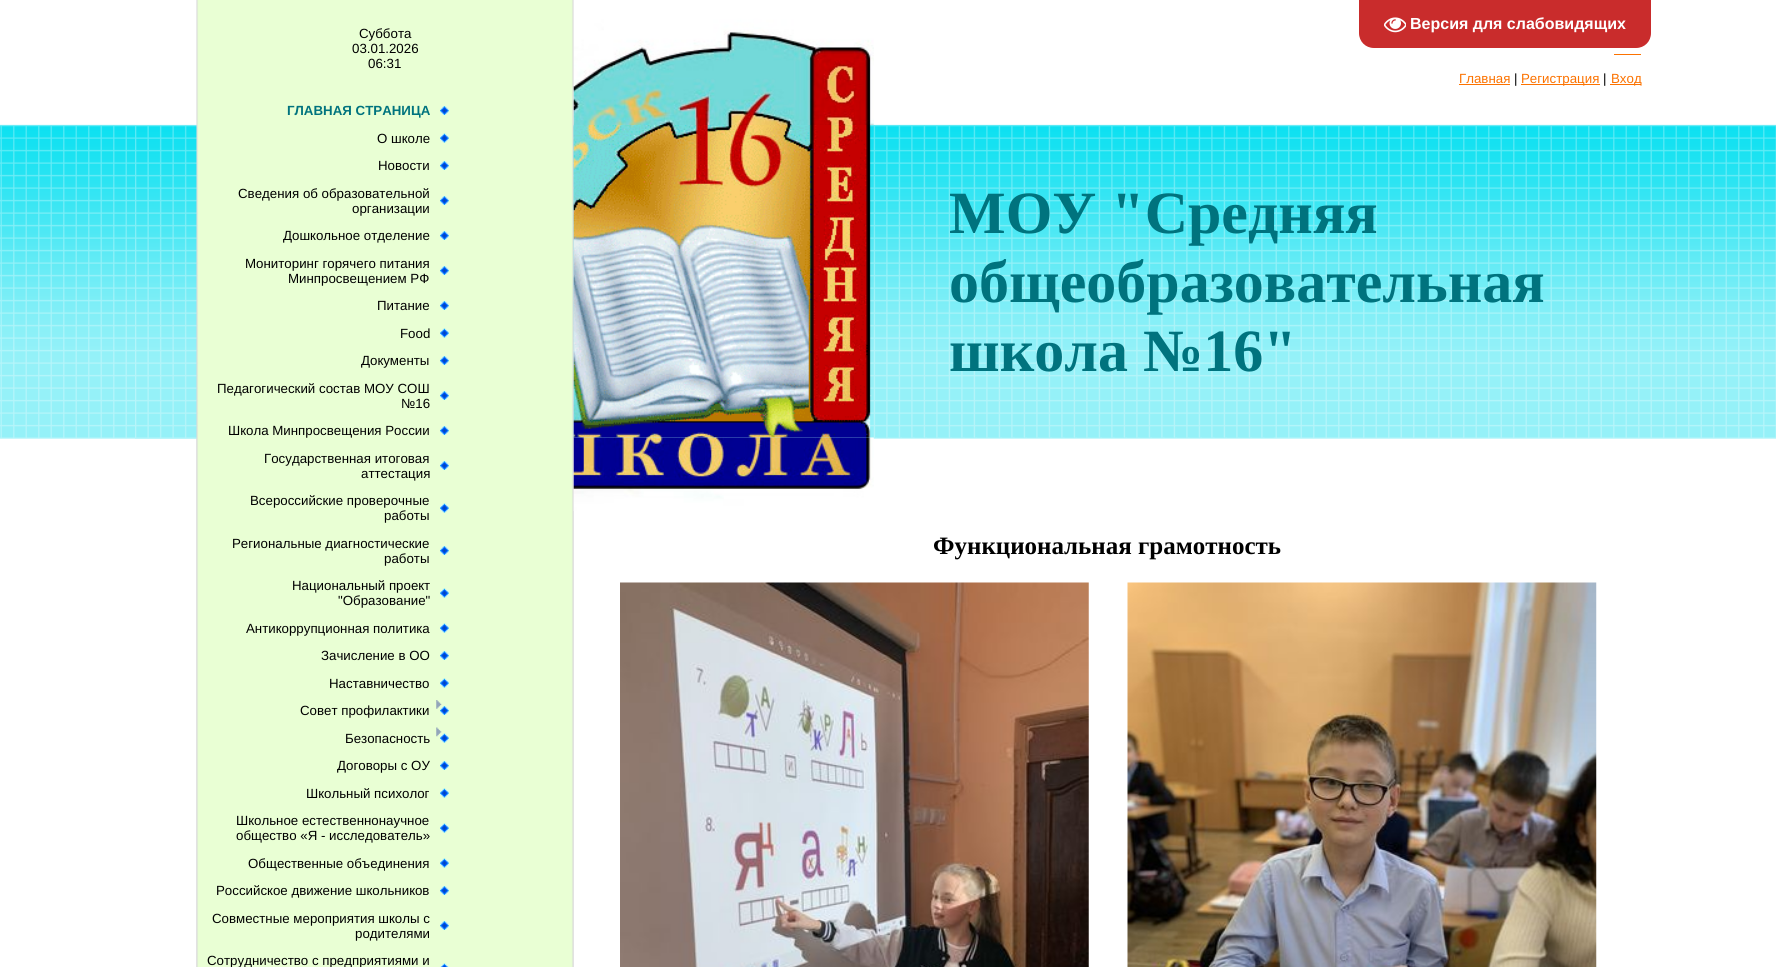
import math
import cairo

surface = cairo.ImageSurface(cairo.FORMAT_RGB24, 1776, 967)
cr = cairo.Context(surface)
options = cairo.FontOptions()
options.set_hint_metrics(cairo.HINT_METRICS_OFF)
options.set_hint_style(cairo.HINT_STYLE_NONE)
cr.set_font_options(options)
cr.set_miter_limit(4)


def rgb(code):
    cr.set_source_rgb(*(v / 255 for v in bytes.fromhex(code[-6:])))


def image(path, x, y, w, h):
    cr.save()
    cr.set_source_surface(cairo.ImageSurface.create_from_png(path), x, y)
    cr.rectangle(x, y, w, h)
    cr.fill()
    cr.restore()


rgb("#ffffff")
cr.paint()
rgb("#c92c2c")
cr.new_path()
cr.move_to(1359, 0)
cr.line_to(1651, 0)
cr.line_to(1651, 33)
cr.curve_to(1651, 41.5, 1644.5, 48, 1636, 48)
cr.line_to(1374, 48)
cr.curve_to(1365.5, 48, 1359, 41.5, 1359, 33)
cr.close_path()
cr.fill()
image("img/1.png", 1384, 17, 22, 16)
image("img/2.png", 0, 124, 1776, 315)
image("img/4.png", 196, 0, 378, 967)
image("img/3.png", 135, 0, 62, 439)
image("img/5.png", 440, 106, 9, 9)
image("img/6.png", 440, 133, 9, 10)
image("img/5.png", 440, 161, 9, 9)
image("img/5.png", 440, 196, 9, 9)
image("img/5.png", 440, 231, 9, 9)
image("img/5.png", 440, 266, 9, 9)
image("img/5.png", 440, 301, 9, 9)
image("img/6.png", 440, 328, 9, 10)
image("img/5.png", 440, 356, 9, 9)
image("img/5.png", 440, 391, 9, 9)
image("img/5.png", 440, 426, 9, 9)
image("img/5.png", 440, 461, 9, 9)
image("img/6.png", 440, 503, 9, 10)
image("img/5.png", 440, 546, 9, 9)
image("img/6.png", 440, 588, 9, 10)
image("img/6.png", 440, 623, 9, 10)
image("img/5.png", 440, 651, 9, 9)
image("img/6.png", 440, 678, 9, 10)
image("img/5.png", 440, 706, 9, 9)
image("img/7.png", 436, 700, 6, 9)
image("img/6.png", 440, 733, 9, 10)
image("img/8.png", 436, 727, 6, 10)
image("img/5.png", 440, 761, 9, 9)
image("img/6.png", 440, 788, 9, 10)
image("img/6.png", 440, 823, 9, 10)
image("img/6.png", 440, 858, 9, 10)
image("img/5.png", 440, 886, 9, 9)
image("img/5.png", 440, 921, 9, 9)
image("img/9.png", 440, 963, 9, 4)
image("img/10.png", 573, 0, 301, 125)
for x, y, w, h, color in [
    (1614, 54, 27, 1, "#fc7200"),
    (1459, 84, 51, 1, "#fc7200"),
    (1521, 84, 79, 1, "#fc7200"),
    (1610, 84, 31, 1, "#fc7200"),
]:
    rgb(color)
    cr.rectangle(x, y, w, h)
    cr.fill()
image("img/11.png", 573, 125, 701, 313)
image("img/12.png", 573, 437, 301, 74)
image("img/13.png", 620, 582, 469, 385)
image("img/14.png", 1127, 582, 470, 385)
cr.select_font_face("Liberation Sans", cairo.FONT_SLANT_NORMAL, cairo.FONT_WEIGHT_BOLD)
cr.set_font_size(16)
rgb("#ffffff")
cr.move_to(1410, 29)
cr.show_text("Версия для слабовидящих")
cr.select_font_face("Liberation Sans")
cr.set_font_size(13.3)
rgb("#000000")
for x, y, s in [
    (359, 38, "Суббота"),
    (352, 53, "03.01.2026"),
    (368, 68, "06:31"),
]:
    cr.move_to(x, y)
    cr.show_text(s)
cr.select_font_face("Liberation Sans", cairo.FONT_SLANT_NORMAL, cairo.FONT_WEIGHT_BOLD)
rgb("#00737e")
cr.move_to(287, 115)
cr.show_text("ГЛАВНАЯ СТРАНИЦА")
cr.select_font_face("Liberation Sans")
rgb("#000000")
for x, y, s in [
    (377, 143, "О школе"),
    (378, 170, "Новости"),
    (238, 198, "Сведения об образовательной"),
    (352, 213, "организации"),
    (283, 240, "Дошкольное отделение"),
    (245, 268, "Мониторинг горячего питания"),
    (288, 283, "Минпросвещением РФ"),
    (377, 310, "Питание"),
    (400, 338, "Food"),
    (361, 365, "Документы"),
    (217, 393, "Педагогический состав МОУ СОШ"),
    (401, 408, "№16"),
    (228, 435, "Школа Минпросвещения России"),
    (264, 463, "Государственная итоговая"),
    (361, 478, "аттестация"),
    (250, 505, "Всероссийские проверочные"),
    (384, 520, "работы"),
    (232, 548, "Региональные диагностические"),
    (384, 563, "работы"),
    (292, 590, "Национальный проект"),
    (338, 605, "\"Образование\""),
    (246, 633, "Антикоррупционная политика"),
    (321, 660, "Зачисление в ОО"),
    (329, 688, "Наставничество"),
    (300, 715, "Совет профилактики"),
    (345, 743, "Безопасность"),
    (337, 770, "Договоры с ОУ"),
    (306, 798, "Школьный психолог"),
    (236, 825, "Школьное естественнонаучное"),
    (236, 840, "общество «Я - исследователь»"),
    (248, 868, "Общественные объединения"),
    (216, 895, "Российское движение школьников"),
    (212, 923, "Совместные мероприятия школы с"),
    (355, 938, "родителями"),
    (207, 965, "Сотрудничество с предприятиями и"),
]:
    cr.move_to(x, y)
    cr.show_text(s)
rgb("#fc7200")
cr.move_to(1459, 83)
cr.show_text("Главная")
rgb("#000000")
cr.move_to(1514, 83)
cr.show_text("|")
rgb("#fc7200")
cr.move_to(1521, 83)
cr.show_text("Регистрация")
rgb("#000000")
cr.move_to(1603, 83)
cr.show_text("|")
rgb("#fc7200")
cr.move_to(1611, 83)
cr.show_text("Вход")
cr.select_font_face("Liberation Serif", cairo.FONT_SLANT_NORMAL, cairo.FONT_WEIGHT_BOLD)
cr.set_font_size(60)
rgb("#00737e")
for x, y, s in [
    (949, 233, "МОУ \"Средняя"),
    (949, 302, "общеобразовательная"),
    (949, 371, "школа №16\""),
]:
    cr.move_to(x, y)
    cr.show_text(s)
cr.set_font_size(25)
rgb("#000000")
cr.move_to(933, 554)
cr.show_text("Функциональная грамотность")
surface.write_to_png("page.png")
